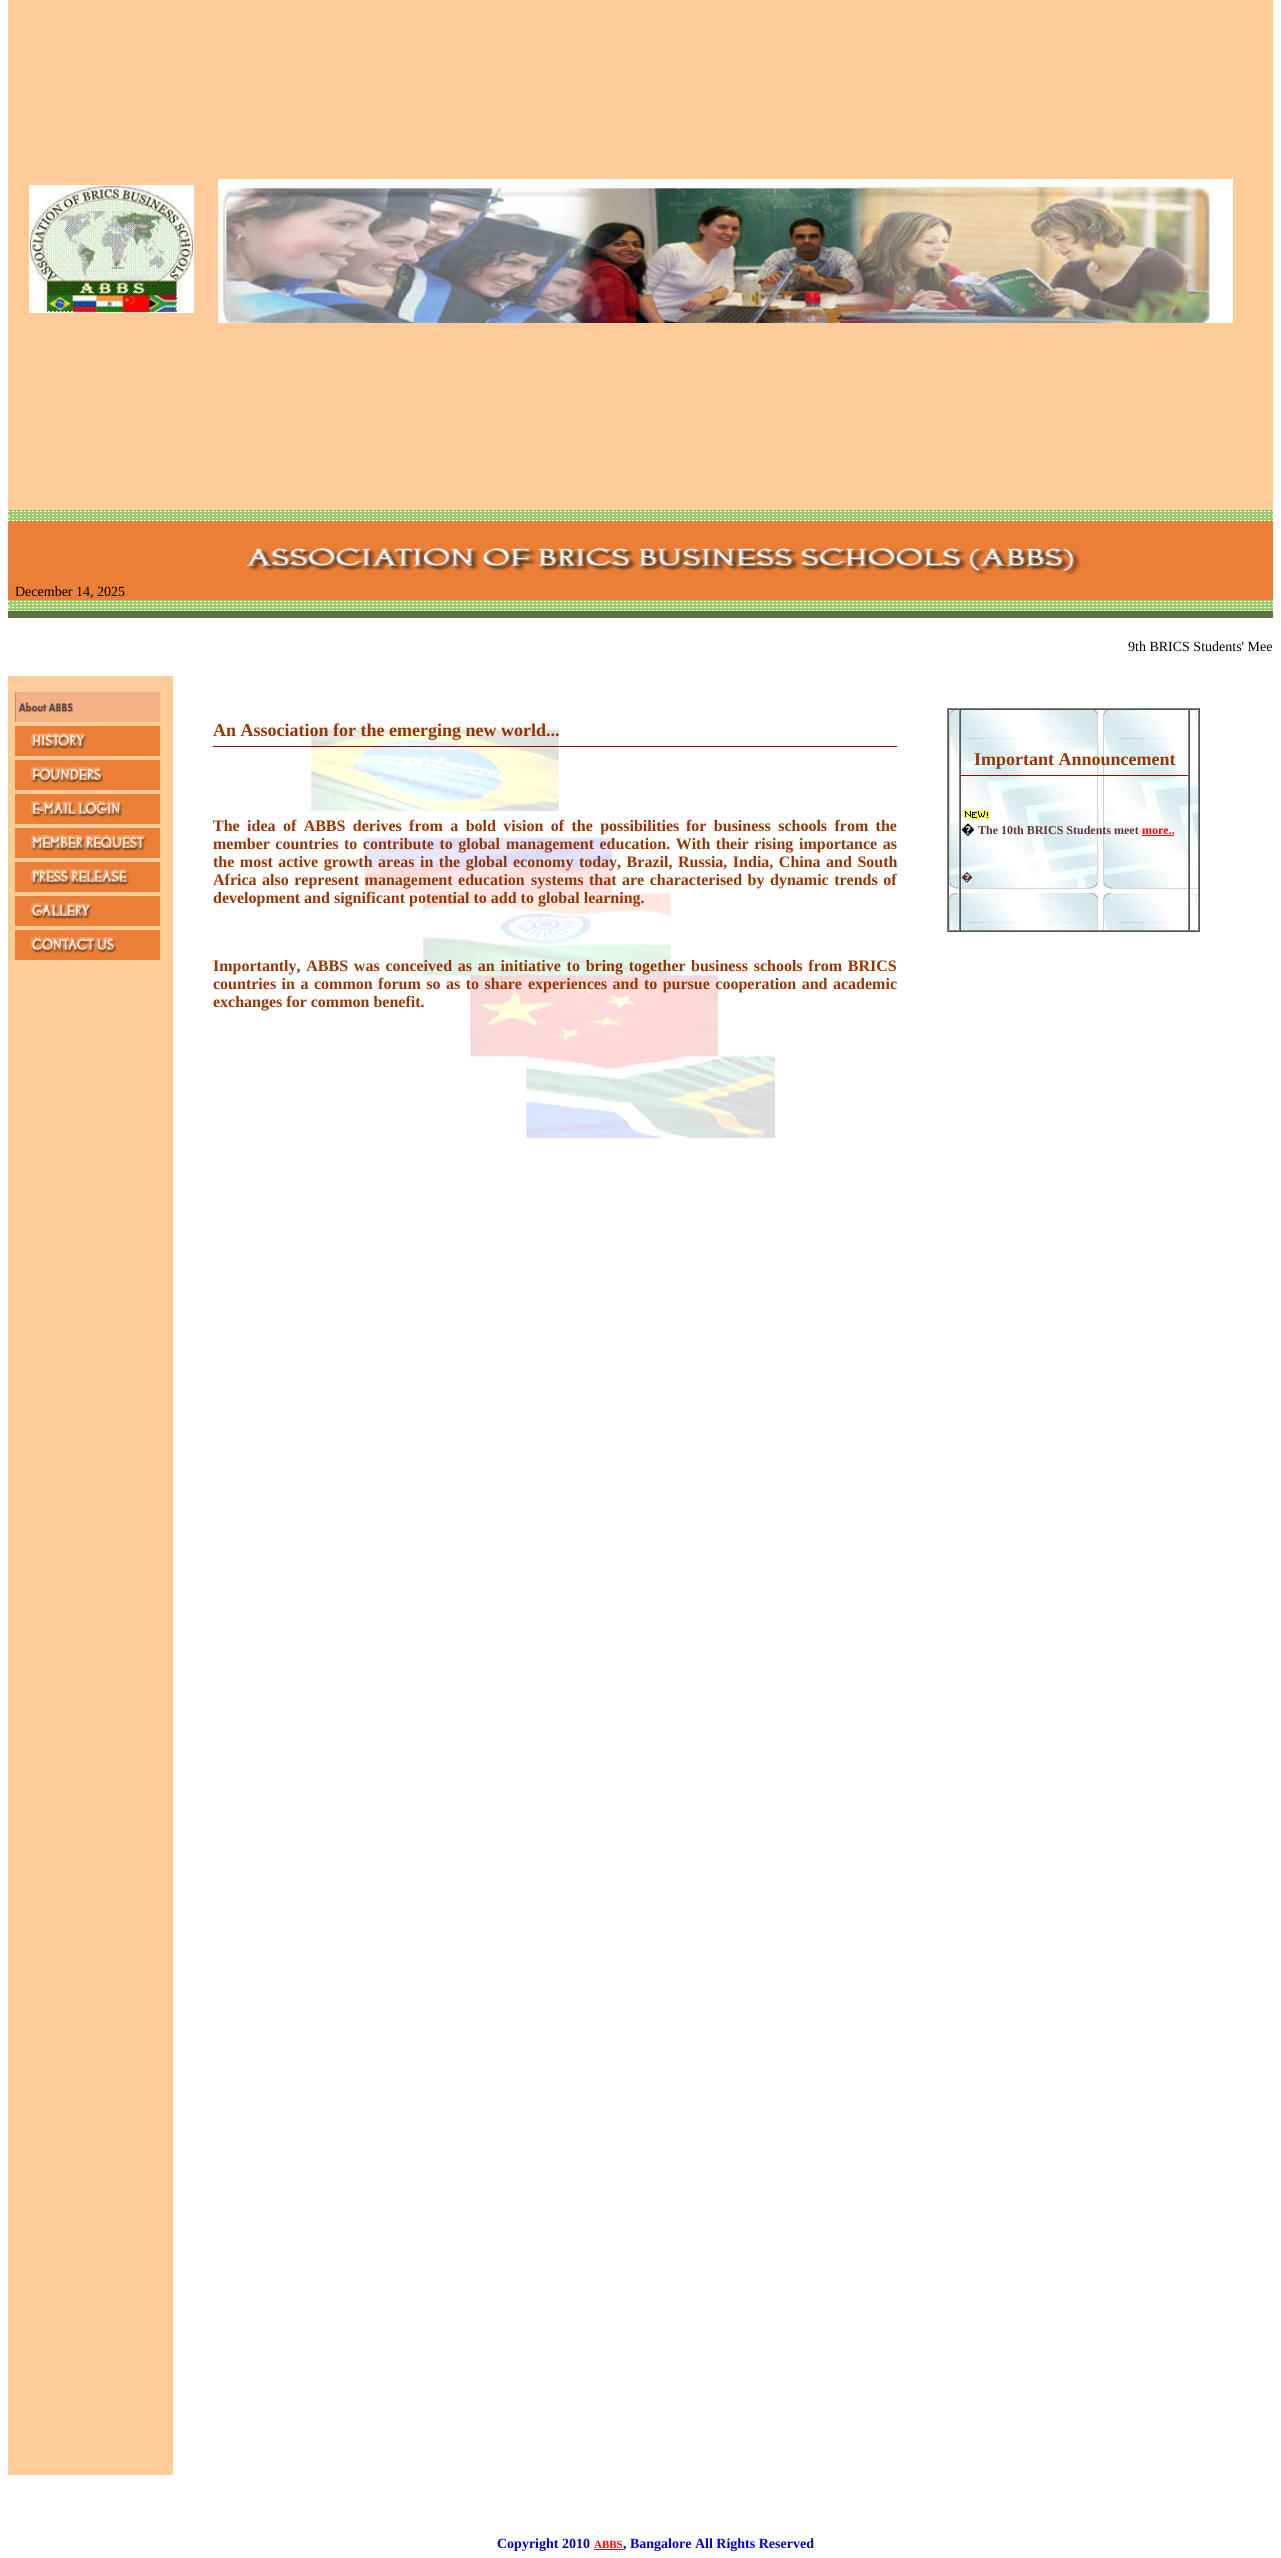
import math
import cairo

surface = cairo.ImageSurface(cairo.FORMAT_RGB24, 1281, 2558)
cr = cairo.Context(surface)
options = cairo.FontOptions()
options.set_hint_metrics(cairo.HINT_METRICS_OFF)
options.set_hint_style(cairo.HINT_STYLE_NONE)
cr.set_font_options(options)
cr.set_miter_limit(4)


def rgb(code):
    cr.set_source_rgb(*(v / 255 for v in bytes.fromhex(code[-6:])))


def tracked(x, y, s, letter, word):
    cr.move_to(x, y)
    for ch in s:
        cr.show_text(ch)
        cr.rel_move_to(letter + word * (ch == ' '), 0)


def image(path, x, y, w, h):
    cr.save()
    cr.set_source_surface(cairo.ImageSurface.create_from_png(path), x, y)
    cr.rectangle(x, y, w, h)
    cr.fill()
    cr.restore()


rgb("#ffffff")
cr.paint()
rgb("#ffcc99")
cr.rectangle(8, 0, 1265, 510)
cr.fill()
image("img/1.png", 29, 185, 165, 128)
image("img/2.png", 218, 179, 1015, 144)
rgb("#99cc66")
cr.rectangle(8, 510, 1265, 1)
cr.fill()
image("img/3.png", 8, 511, 1265, 10)
image("img/4.png", 8, 514, 2, 2)
rgb("#eb7f37")
cr.rectangle(8, 521, 1265, 79)
cr.fill()
image("img/5.png", 246, 548, 835, 27)
rgb("#99cc66")
cr.rectangle(8, 600, 1265, 1)
cr.fill()
image("img/3.png", 8, 601, 1265, 10)
image("img/4.png", 8, 604, 2, 2)
rgb("#5c743d")
cr.rectangle(8, 611, 1265, 7)
cr.fill()
rgb("#ffcc99")
cr.rectangle(8, 676, 165, 1799)
cr.fill()
image("img/6.png", 15, 692, 145, 30)
image("img/7.png", 15, 726, 145, 30)
image("img/8.png", 15, 760, 145, 30)
image("img/9.png", 15, 794, 145, 30)
image("img/10.png", 15, 828, 145, 30)
image("img/11.png", 15, 862, 145, 30)
image("img/12.png", 15, 896, 145, 30)
image("img/13.png", 15, 930, 145, 30)
image("img/14.png", 311, 728, 465, 411)
rgb("#9d0302")
cr.rectangle(213, 746, 684, 1)
cr.fill()
image("img/15.png", 949, 710, 249, 220)
for x, y, w, h, color in [
    (947, 708, 253, 1, "#808080"),
    (1199, 708, 1, 224, "#555555"),
    (947, 931, 253, 1, "#555555"),
    (947, 708, 1, 224, "#808080"),
    (948, 709, 251, 1, "#555555"),
    (959, 709, 1, 222, "#808080"),
    (948, 930, 12, 1, "#808080"),
    (948, 709, 1, 222, "#555555"),
    (1188, 709, 1, 222, "#808080"),
    (960, 930, 229, 1, "#808080"),
    (960, 709, 1, 222, "#555555"),
    (961, 775, 227, 1, "#9d0302"),
]:
    rgb(color)
    cr.rectangle(x, y, w, h)
    cr.fill()
image("img/16.png", 964, 810, 25, 9)
for x, y, w, h, color in [
    (1142, 835, 32, 1, "#ff0000"),
    (1198, 709, 1, 222, "#808080"),
    (1189, 930, 10, 1, "#808080"),
    (1189, 709, 1, 222, "#555555"),
    (594, 2549, 29, 1, "#ff0000"),
]:
    rgb(color)
    cr.rectangle(x, y, w, h)
    cr.fill()
cr.select_font_face("Liberation Serif")
cr.set_font_size(14)
rgb("#000000")
cr.move_to(15, 596)
cr.show_text("December 14, 2025")
cr.move_to(1128, 651)
cr.show_text("9th BRICS Students' Mee")
cr.select_font_face("Liberation Serif", cairo.FONT_SLANT_NORMAL, cairo.FONT_WEIGHT_BOLD)
cr.set_font_size(18)
rgb("#993300")
cr.move_to(213, 736)
cr.show_text("An Association for the emerging new world...")
cr.set_font_size(16)
tracked(213, 831, "The idea of ABBS derives from a bold vision of the possibilities", 0, 3.4)
tracked(686, 831, "for business schools from the", 0, 3.4)
for x, y, s in [
    (213, 849, "member countries to contribute to global"),
    (506, 849, "management education. With their rising"),
    (799, 849, "importance as"),
    (213, 867, "the most active growth areas in the global economy today, Brazil,"),
    (678, 867, "Russia, India, China and South"),
    (213, 885, "Africa also represent management education"),
    (531, 885, "systems that are characterised by dynamic trends of"),
]:
    tracked(x, y, s, 0, 1.5)
cr.move_to(213, 903)
cr.show_text("development and significant potential to add to global learning.")
tracked(213, 971, "Importantly, ABBS was conceived as an initiative to bring together", 0, 1.75)
tracked(691, 971, "business schools from BRICS", 0, 1.75)
tracked(213, 989, "countries in a common forum so as to share", 0, 1.5)
tracked(528, 989, "experiences and to pursue cooperation and academic", 0, 1.5)
cr.move_to(213, 1007)
cr.show_text("exchanges for common benefit.")
cr.set_font_size(18)
cr.move_to(974, 765)
cr.show_text("Important Announcement")
cr.select_font_face("Noto Sans")
cr.set_font_size(14)
rgb("#000000")
cr.move_to(961, 834)
cr.show_text("�")
cr.select_font_face("Liberation Serif", cairo.FONT_SLANT_NORMAL, cairo.FONT_WEIGHT_BOLD)
cr.set_font_size(12)
rgb("#663333")
cr.move_to(978, 834)
cr.show_text("The 10th BRICS Students meet")
rgb("#ff0000")
cr.move_to(1142, 834)
cr.show_text("more..")
cr.select_font_face("Noto Sans", cairo.FONT_SLANT_NORMAL, cairo.FONT_WEIGHT_BOLD)
rgb("#663333")
cr.move_to(961, 881)
cr.show_text("�")
cr.select_font_face("Liberation Serif", cairo.FONT_SLANT_NORMAL, cairo.FONT_WEIGHT_BOLD)
cr.set_font_size(14)
rgb("#0000cc")
cr.move_to(497, 2548)
cr.show_text("Copyright 2010")
cr.set_font_size(11)
rgb("#ff0000")
cr.move_to(594, 2548)
cr.show_text("ABBS")
cr.set_font_size(14)
rgb("#0000cc")
cr.move_to(623, 2548)
cr.show_text(", Bangalore All Rights Reserved")
surface.write_to_png("page.png")
